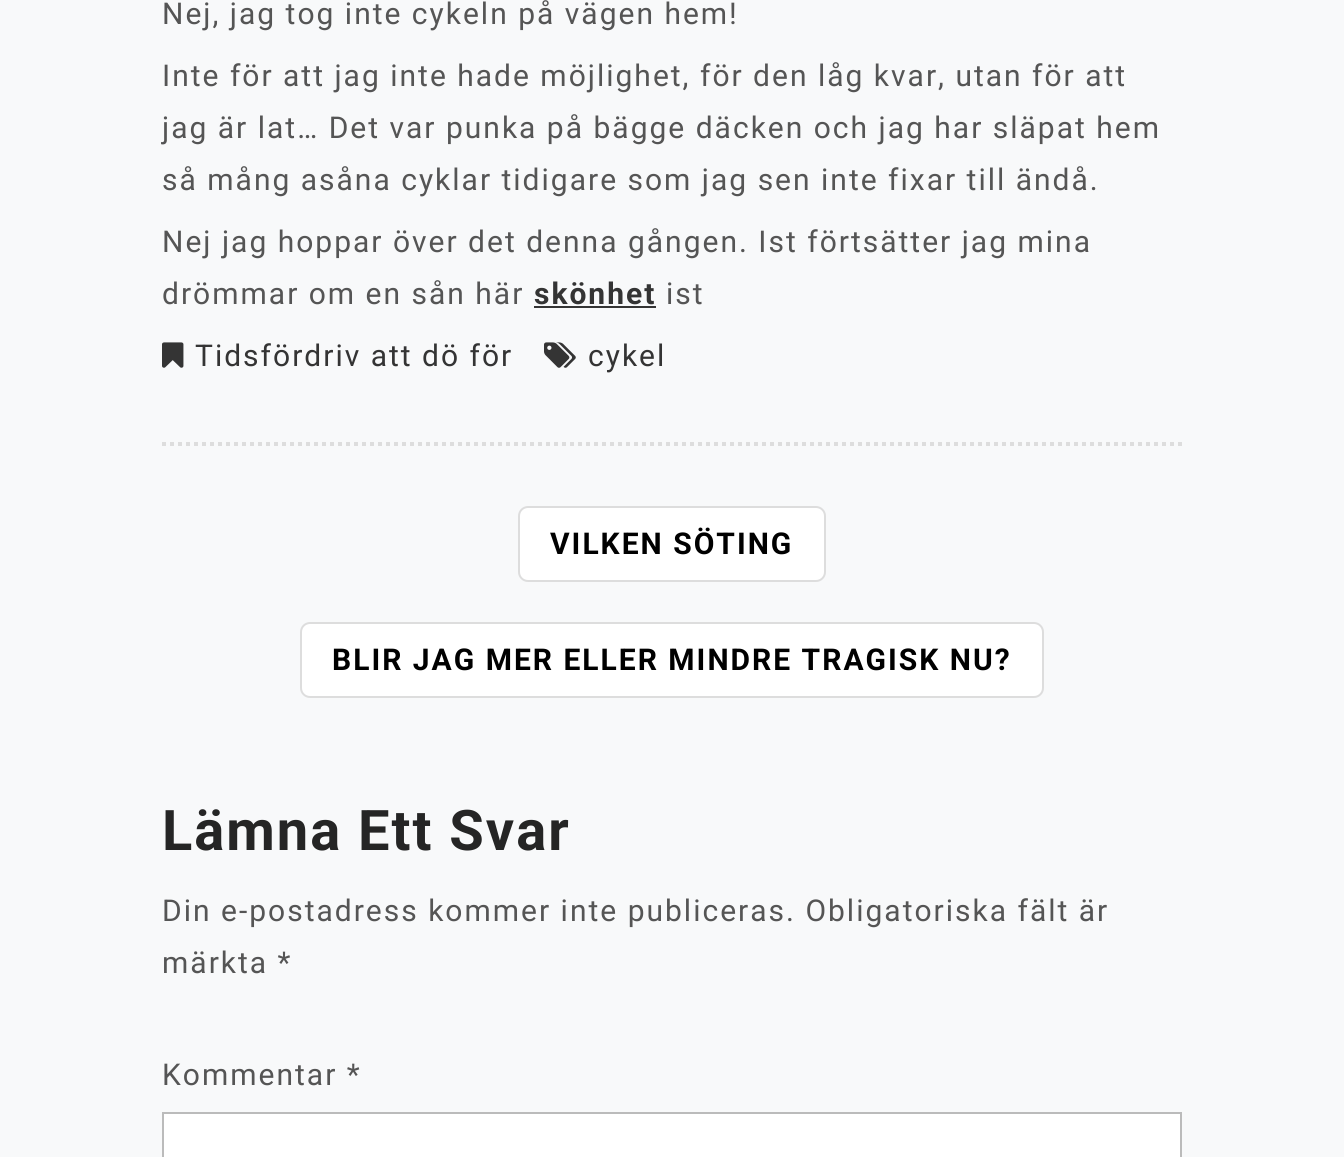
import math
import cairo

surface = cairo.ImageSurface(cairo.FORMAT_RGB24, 1344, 1157)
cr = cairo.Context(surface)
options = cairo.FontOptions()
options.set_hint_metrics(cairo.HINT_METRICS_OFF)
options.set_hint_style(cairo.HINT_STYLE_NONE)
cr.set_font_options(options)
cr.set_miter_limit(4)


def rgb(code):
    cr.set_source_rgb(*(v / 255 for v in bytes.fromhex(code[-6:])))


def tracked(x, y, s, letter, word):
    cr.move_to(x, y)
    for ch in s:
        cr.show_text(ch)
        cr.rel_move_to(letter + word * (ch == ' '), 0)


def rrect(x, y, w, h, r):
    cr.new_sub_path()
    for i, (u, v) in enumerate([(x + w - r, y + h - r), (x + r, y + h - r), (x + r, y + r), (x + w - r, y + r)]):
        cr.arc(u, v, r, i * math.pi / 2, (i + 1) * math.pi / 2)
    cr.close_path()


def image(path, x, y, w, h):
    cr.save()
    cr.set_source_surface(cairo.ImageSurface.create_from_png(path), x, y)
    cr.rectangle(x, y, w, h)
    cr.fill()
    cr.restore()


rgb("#f8f9fa")
cr.paint()
cr.new_path()
cr.move_to(162, 444)
cr.line_to(1182, 444)
rgb("#dddddd")
cr.set_line_width(4)
cr.set_dash([4, 4])
cr.stroke()
rgb("#343434")
cr.rectangle(534, 306, 122, 2)
cr.fill()
image("img/1.png", 162, 342, 22, 26)
image("img/2.png", 544, 342, 32, 26)
rgb("#ffffff")
rrect(519, 507, 306, 74, 9)
cr.fill_preserve()
rgb("#dddddd")
cr.set_line_width(2)
cr.set_dash([])
cr.stroke()
rgb("#ffffff")
rrect(301, 623, 742, 74, 9)
cr.fill_preserve()
rgb("#dddddd")
cr.stroke()
rgb("#ffffff")
cr.rectangle(163, 1113, 1018, 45)
cr.fill_preserve()
rgb("#bbbbbb")
cr.stroke()
cr.select_font_face("Roboto")
cr.set_font_size(30)
rgb("#555555")
for x, y, s in [
    (162, 24, "Nej, jag tog inte cykeln på vägen hem!"),
    (162, 86, "Inte för att jag inte hade möjlighet, för den låg kvar, utan för att"),
    (162, 138, "jag är lat… Det var punka på bägge däcken och jag har släpat hem"),
    (162, 190, "så mång asåna cyklar tidigare som jag sen inte fixar till ändå."),
    (162, 252, "Nej jag hoppar över det denna gången. Ist förtsätter jag mina"),
    (162, 304, "drömmar om en sån här"),
]:
    tracked(x, y, s, 2, 0)
cr.select_font_face("Roboto", cairo.FONT_SLANT_NORMAL, cairo.FONT_WEIGHT_BOLD)
rgb("#343434")
tracked(534, 304, "skönhet", 2, 0)
cr.select_font_face("Roboto")
rgb("#555555")
tracked(666, 304, "ist", 2, 0)
rgb("#343434")
tracked(195, 366, "Tidsfördriv att dö för", 2, 0)
tracked(588, 366, "cykel", 2, 0)
cr.select_font_face("Roboto", cairo.FONT_SLANT_NORMAL, cairo.FONT_WEIGHT_BOLD)
rgb("#000000")
tracked(550, 554, "VILKEN SÖTING", 2, 0)
tracked(332, 670, "BLIR JAG MER ELLER MINDRE TRAGISK NU?", 2, 0)
cr.set_font_size(56)
rgb("#252525")
tracked(162, 850, "Lämna Ett Svar", 2, 0)
cr.select_font_face("Roboto")
cr.set_font_size(30)
rgb("#555555")
for x, y, s in [
    (162, 921, "Din e-postadress kommer inte publiceras. Obligatoriska fält är"),
    (162, 973, "märkta *"),
    (162, 1085, "Kommentar *"),
]:
    tracked(x, y, s, 2, 0)
surface.write_to_png("page.png")
